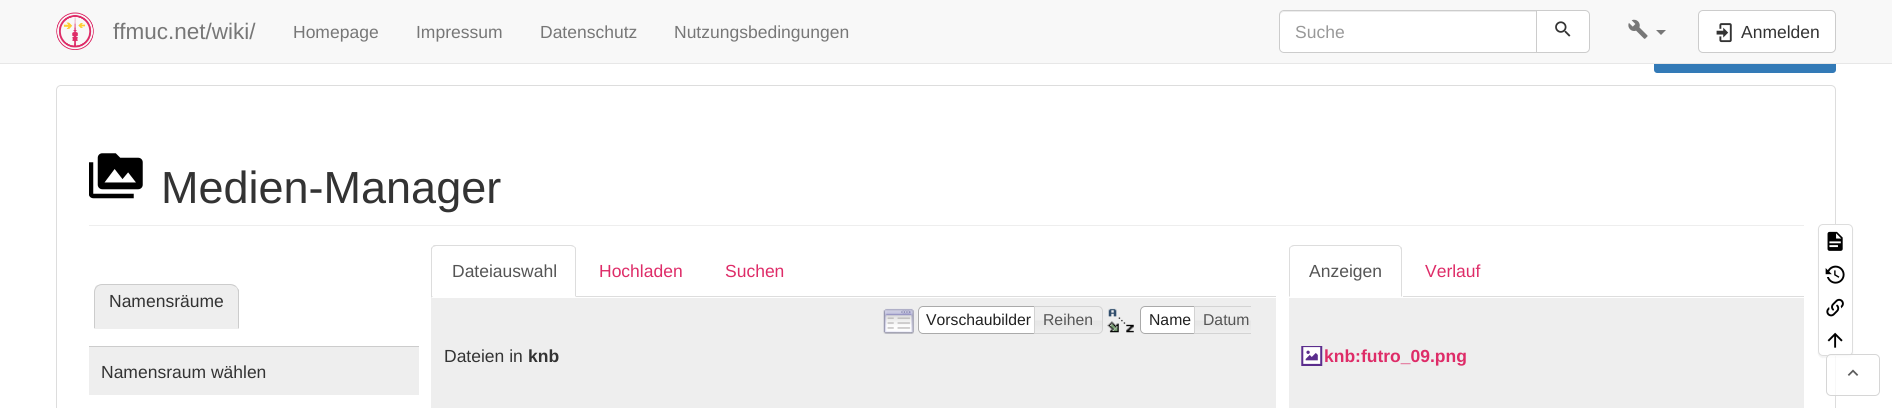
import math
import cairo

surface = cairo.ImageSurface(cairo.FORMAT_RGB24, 1892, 408)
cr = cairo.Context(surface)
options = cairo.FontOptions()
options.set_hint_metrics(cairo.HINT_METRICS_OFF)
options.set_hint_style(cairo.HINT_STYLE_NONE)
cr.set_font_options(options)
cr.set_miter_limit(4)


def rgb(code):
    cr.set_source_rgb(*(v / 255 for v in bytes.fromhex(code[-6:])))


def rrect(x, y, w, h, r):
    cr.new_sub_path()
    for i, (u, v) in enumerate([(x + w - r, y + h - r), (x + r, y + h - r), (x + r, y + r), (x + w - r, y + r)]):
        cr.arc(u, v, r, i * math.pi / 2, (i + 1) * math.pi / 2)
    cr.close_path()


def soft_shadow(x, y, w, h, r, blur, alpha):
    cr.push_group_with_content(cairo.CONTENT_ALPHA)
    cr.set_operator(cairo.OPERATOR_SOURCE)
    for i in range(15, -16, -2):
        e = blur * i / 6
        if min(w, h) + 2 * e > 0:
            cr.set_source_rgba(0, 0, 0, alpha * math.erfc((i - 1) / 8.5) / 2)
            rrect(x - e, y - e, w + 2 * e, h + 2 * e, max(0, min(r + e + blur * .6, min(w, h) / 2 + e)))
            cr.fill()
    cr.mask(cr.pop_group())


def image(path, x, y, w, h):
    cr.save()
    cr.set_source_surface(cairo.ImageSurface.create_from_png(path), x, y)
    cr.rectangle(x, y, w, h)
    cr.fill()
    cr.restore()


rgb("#ffffff")
cr.paint()
rgb("#337ab7")
cr.new_path()
cr.move_to(1657, 51)
cr.line_to(1675, 51)
cr.line_to(1675, 73)
cr.line_to(1657, 73)
cr.curve_to(1655.5, 73, 1654, 71.5, 1654, 70)
cr.line_to(1654, 54)
cr.curve_to(1654, 52.5, 1655.5, 51, 1657, 51)
cr.close_path()
cr.fill()
cr.new_path()
cr.move_to(1816, 51)
cr.line_to(1833, 51)
cr.curve_to(1834.5, 51, 1836, 52.5, 1836, 54)
cr.line_to(1836, 70)
cr.curve_to(1836, 71.5, 1834.5, 73, 1833, 73)
cr.line_to(1816, 73)
cr.close_path()
cr.fill()
rgb("#f8f8f8")
cr.rectangle(0, 0, 1892, 63)
cr.fill()
rgb("#e7e7e7")
cr.rectangle(0, 63, 1892, 1)
cr.fill()
image("img/1.png", 56, 12, 38, 38)
rgb("#ffffff")
cr.new_path()
cr.move_to(1284, 10)
cr.line_to(1538, 10)
cr.line_to(1538, 53)
cr.line_to(1284, 53)
cr.curve_to(1281, 53, 1279, 51, 1279, 48)
cr.line_to(1279, 15)
cr.curve_to(1279, 12, 1281, 10, 1284, 10)
cr.close_path()
cr.fill()
rgb("#ececec")
cr.new_path()
cr.move_to(1284, 12)
cr.line_to(1536, 12)
cr.line_to(1536, 11)
cr.line_to(1284, 11)
cr.curve_to(1282, 11, 1280, 13, 1280, 15)
cr.line_to(1280, 16)
cr.curve_to(1280, 14, 1282, 12, 1284, 12)
cr.close_path()
cr.fill()
cr.new_path()
cr.move_to(1284, 10.5)
cr.line_to(1537.5, 10.5)
cr.line_to(1537.5, 52.5)
cr.line_to(1284, 52.5)
cr.curve_to(1281.5, 52.5, 1279.5, 50.5, 1279.5, 48)
cr.line_to(1279.5, 15)
cr.curve_to(1279.5, 12.5, 1281.5, 10.5, 1284, 10.5)
cr.close_path()
rgb("#cccccc")
cr.set_line_width(1)
cr.stroke()
rgb("#ffffff")
cr.new_path()
cr.move_to(1536.5, 10.5)
cr.line_to(1585, 10.5)
cr.curve_to(1587.5, 10.5, 1589.5, 12.5, 1589.5, 15)
cr.line_to(1589.5, 48)
cr.curve_to(1589.5, 50.5, 1587.5, 52.5, 1585, 52.5)
cr.line_to(1536.5, 52.5)
cr.close_path()
cr.fill_preserve()
rgb("#cccccc")
cr.stroke()
image("img/2.png", 1555, 21, 16, 16)
image("img/3.png", 1628, 19, 20, 20)
rgb("#777777")
cr.new_path()
cr.move_to(1656, 30)
cr.line_to(1666, 30)
cr.line_to(1661, 35)
cr.close_path()
cr.fill()
rgb("#ffffff")
rrect(1698.5, 10.5, 137, 42, 4.5)
cr.fill_preserve()
rgb("#cccccc")
cr.stroke()
image("img/4.png", 1716, 23, 16, 20)
rgb("#337ab7")
cr.rectangle(1675, 64, 141, 9)
cr.fill()
rrect(56.5, 85.5, 1779, 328, 4.5)
rgb("#dddddd")
cr.stroke()
rgb("#eeeeee")
cr.rectangle(89, 225, 1715, 1)
cr.fill()
image("img/5.png", 89, 153, 54, 46)
cr.new_path()
cr.move_to(103, 284)
cr.line_to(230, 284)
cr.curve_to(235, 284, 239, 288, 239, 293)
cr.line_to(239, 329)
cr.line_to(94, 329)
cr.line_to(94, 293)
cr.curve_to(94, 288, 98, 284, 103, 284)
cr.close_path()
cr.fill()
rgb("#cccccc")
cr.new_path()
cr.move_to(102, 284)
cr.curve_to(100, 284, 98, 285, 96, 286)
cr.line_to(97, 287)
cr.curve_to(98, 286, 100, 285, 102, 285)
cr.line_to(230, 285)
cr.curve_to(232, 285, 234, 286, 236, 287)
cr.line_to(236, 286)
cr.curve_to(235, 285, 232, 284, 230, 284)
cr.close_path()
cr.fill()
cr.new_path()
cr.move_to(236, 286)
cr.line_to(239, 290)
cr.line_to(239, 329)
cr.line_to(238, 328)
cr.line_to(238, 292)
cr.curve_to(238, 290, 237, 288, 236, 287)
cr.close_path()
cr.fill()
rgb("#eeeeee")
cr.new_path()
cr.move_to(239, 329)
cr.line_to(94, 329)
cr.line_to(95, 328)
cr.line_to(238, 328)
cr.close_path()
cr.fill()
rgb("#cccccc")
cr.new_path()
cr.move_to(96, 286)
cr.curve_to(95, 288, 94, 290, 94, 292)
cr.line_to(94, 328)
cr.line_to(95, 328)
cr.line_to(95, 292)
cr.curve_to(95, 290, 96, 288, 97, 287)
cr.close_path()
cr.fill()
for x, y, w, h, color in [
    (89, 347, 330, 48, "#eeeeee"),
    (89, 346, 330, 1, "#cccccc"),
    (576, 296, 700, 1, "#dddddd"),
]:
    rgb(color)
    cr.rectangle(x, y, w, h)
    cr.fill()
cr.new_path()
cr.move_to(436, 245)
cr.curve_to(435, 245, 433, 245, 433, 246)
cr.line_to(433, 247)
cr.line_to(436, 246)
cr.line_to(571, 246)
cr.line_to(574, 247)
cr.line_to(575, 247)
cr.curve_to(574, 246, 573, 245, 571, 245)
cr.close_path()
cr.fill()
cr.new_path()
cr.move_to(575, 247)
cr.curve_to(576, 247, 576, 249, 576, 250)
cr.line_to(576, 297)
cr.line_to(575, 296)
cr.line_to(575, 250)
cr.curve_to(575, 249, 575, 248, 574, 247)
cr.close_path()
cr.fill()
cr.new_path()
cr.move_to(431, 298)
cr.line_to(431, 248)
cr.line_to(433, 246)
cr.line_to(433, 247)
cr.line_to(432, 249)
cr.line_to(432, 296)
cr.line_to(433, 296)
cr.close_path()
cr.fill()
rgb("#eeeeee")
cr.rectangle(431, 298, 845, 110)
cr.fill()
image("img/6.png", 883, 308, 31, 26)
rgb("#ffffff")
cr.new_path()
cr.move_to(923, 306)
cr.line_to(1040, 306)
cr.line_to(1040, 334)
cr.line_to(923, 334)
cr.curve_to(920, 334, 918, 332, 918, 329)
cr.line_to(918, 311)
cr.curve_to(918, 308, 920, 306, 923, 306)
cr.close_path()
cr.fill()
image("img/7.png", 917, 308, 4, 26)
cr.new_path()
cr.move_to(923, 306.5)
cr.line_to(1039.5, 306.5)
cr.line_to(1039.5, 333.5)
cr.line_to(923, 333.5)
cr.curve_to(920.5, 333.5, 918.5, 331.5, 918.5, 329)
cr.line_to(918.5, 311)
cr.curve_to(918.5, 308.5, 920.5, 306.5, 923, 306.5)
cr.close_path()
rgb("#aaaaaa")
cr.stroke()
image("img/8.png", 1033, 307, 69, 27)
cr.new_path()
cr.move_to(1034.5, 306.5)
cr.line_to(1098, 306.5)
cr.curve_to(1100.5, 306.5, 1102.5, 308.5, 1102.5, 311)
cr.line_to(1102.5, 329)
cr.curve_to(1102.5, 331.5, 1100.5, 333.5, 1098, 333.5)
cr.line_to(1034.5, 333.5)
cr.close_path()
rgb("#d3d3d3")
cr.stroke()
image("img/9.png", 1107, 308, 27, 25)
rgb("#ffffff")
cr.new_path()
cr.move_to(1145, 306)
cr.line_to(1200, 306)
cr.line_to(1200, 334)
cr.line_to(1145, 334)
cr.curve_to(1142, 334, 1140, 332, 1140, 329)
cr.line_to(1140, 311)
cr.curve_to(1140, 308, 1142, 306, 1145, 306)
cr.close_path()
cr.fill()
rgb("#fbfbfb")
cr.rectangle(1141, 332, 1, 1)
cr.fill()
cr.new_path()
cr.move_to(1145, 306.5)
cr.line_to(1199.5, 306.5)
cr.line_to(1199.5, 333.5)
cr.line_to(1145, 333.5)
cr.curve_to(1142.5, 333.5, 1140.5, 331.5, 1140.5, 329)
cr.line_to(1140.5, 311)
cr.curve_to(1140.5, 308.5, 1142.5, 306.5, 1145, 306.5)
cr.close_path()
rgb("#aaaaaa")
cr.stroke()
image("img/10.png", 1193, 307, 58, 27)
cr.save()
cr.rectangle(874, 306, 377, 28)
cr.clip()
cr.new_path()
cr.move_to(1194.5, 306.5)
cr.line_to(1253, 306.5)
cr.curve_to(1255.5, 306.5, 1257.5, 308.5, 1257.5, 311)
cr.line_to(1257.5, 329)
cr.curve_to(1257.5, 331.5, 1255.5, 333.5, 1253, 333.5)
cr.line_to(1194.5, 333.5)
cr.close_path()
rgb("#d3d3d3")
cr.stroke()
cr.restore()
rgb("#dddddd")
cr.rectangle(1403, 296, 401, 1)
cr.fill()
cr.new_path()
cr.move_to(1294, 245)
cr.curve_to(1292, 245, 1291, 246, 1290, 247)
cr.line_to(1291, 247)
cr.line_to(1294, 246)
cr.line_to(1398, 246)
cr.line_to(1400, 247)
cr.line_to(1401, 247)
cr.curve_to(1400, 246, 1399, 245, 1398, 245)
cr.close_path()
cr.fill()
cr.new_path()
cr.move_to(1401, 247)
cr.curve_to(1402, 247, 1402, 249, 1402, 250)
cr.line_to(1402, 297)
cr.line_to(1401, 296)
cr.line_to(1401, 250)
cr.line_to(1400, 247)
cr.close_path()
cr.fill()
cr.new_path()
cr.move_to(1290, 247)
cr.curve_to(1289, 247, 1289, 249, 1289, 250)
cr.line_to(1289, 297)
cr.line_to(1290, 296)
cr.line_to(1290, 250)
cr.curve_to(1290, 249, 1290, 248, 1291, 247)
cr.close_path()
cr.fill()
rgb("#eeeeee")
cr.rectangle(1289, 298, 515, 110)
cr.fill()
image("img/11.png", 1301, 346, 22, 20)
rgb("#000000")
soft_shadow(1818, 225, 35, 133, 5, 0.5, 0.05)
rgb("#ffffff")
rrect(1818.5, 224.5, 34, 131, 4.5)
cr.fill_preserve()
rgb("#dddddd")
cr.stroke()
image("img/12.png", 1827, 231, 16, 20)
image("img/13.png", 1825, 265, 20, 19)
image("img/14.png", 1826, 298, 18, 19)
image("img/15.png", 1827, 332, 16, 16)
cr.set_source_rgba(1, 1, 1, 0.8)
rrect(1826, 354, 54, 42, 5)
cr.fill()
rrect(1826.5, 354.5, 53, 41, 4.5)
cr.set_source_rgba(0.8, 0.8, 0.8, 0.8)
cr.stroke()
image("img/16.png", 1847, 369, 12, 7)
cr.select_font_face("Liberation Sans")
cr.set_font_size(22.5)
rgb("#777777")
cr.move_to(113, 39)
cr.show_text("ffmuc.net/wiki/")
cr.set_font_size(17.5)
for x, y, s in [
    (293, 38, "Homepage"),
    (416, 38, "Impressum"),
    (540, 38, "Datenschutz"),
    (674, 38, "Nutzungsbedingungen"),
]:
    cr.move_to(x, y)
    cr.show_text(s)
rgb("#999999")
cr.move_to(1295, 38)
cr.show_text("Suche")
rgb("#333333")
cr.move_to(1741, 38)
cr.show_text("Anmelden")
cr.set_font_size(45)
cr.move_to(161, 203)
cr.show_text("Medien-Manager")
cr.set_font_size(17.5)
cr.move_to(109, 307)
cr.show_text("Namensräume")
cr.move_to(101, 378)
cr.show_text("Namensraum wählen")
rgb("#555555")
cr.move_to(452, 277)
cr.show_text("Dateiauswahl")
rgb("#de2c68")
cr.move_to(599, 277)
cr.show_text("Hochladen")
cr.move_to(725, 277)
cr.show_text("Suchen")
cr.set_font_size(15.75)
rgb("#212121")
cr.move_to(926, 325)
cr.show_text("Vorschaubilder")
rgb("#555555")
cr.move_to(1043, 325)
cr.show_text("Reihen")
rgb("#212121")
cr.move_to(1149, 325)
cr.show_text("Name")
rgb("#555555")
cr.move_to(1203, 325)
cr.show_text("Datum")
cr.set_font_size(17.5)
rgb("#333333")
cr.move_to(444, 362)
cr.show_text("Dateien in")
cr.select_font_face("Liberation Sans", cairo.FONT_SLANT_NORMAL, cairo.FONT_WEIGHT_BOLD)
cr.move_to(528, 362)
cr.show_text("knb")
cr.select_font_face("Liberation Sans")
rgb("#555555")
cr.move_to(1309, 277)
cr.show_text("Anzeigen")
rgb("#de2c68")
cr.move_to(1425, 277)
cr.show_text("Verlauf")
cr.select_font_face("Liberation Sans", cairo.FONT_SLANT_NORMAL, cairo.FONT_WEIGHT_BOLD)
cr.move_to(1324, 362)
cr.show_text("knb:futro_09.png")
surface.write_to_png("page.png")
